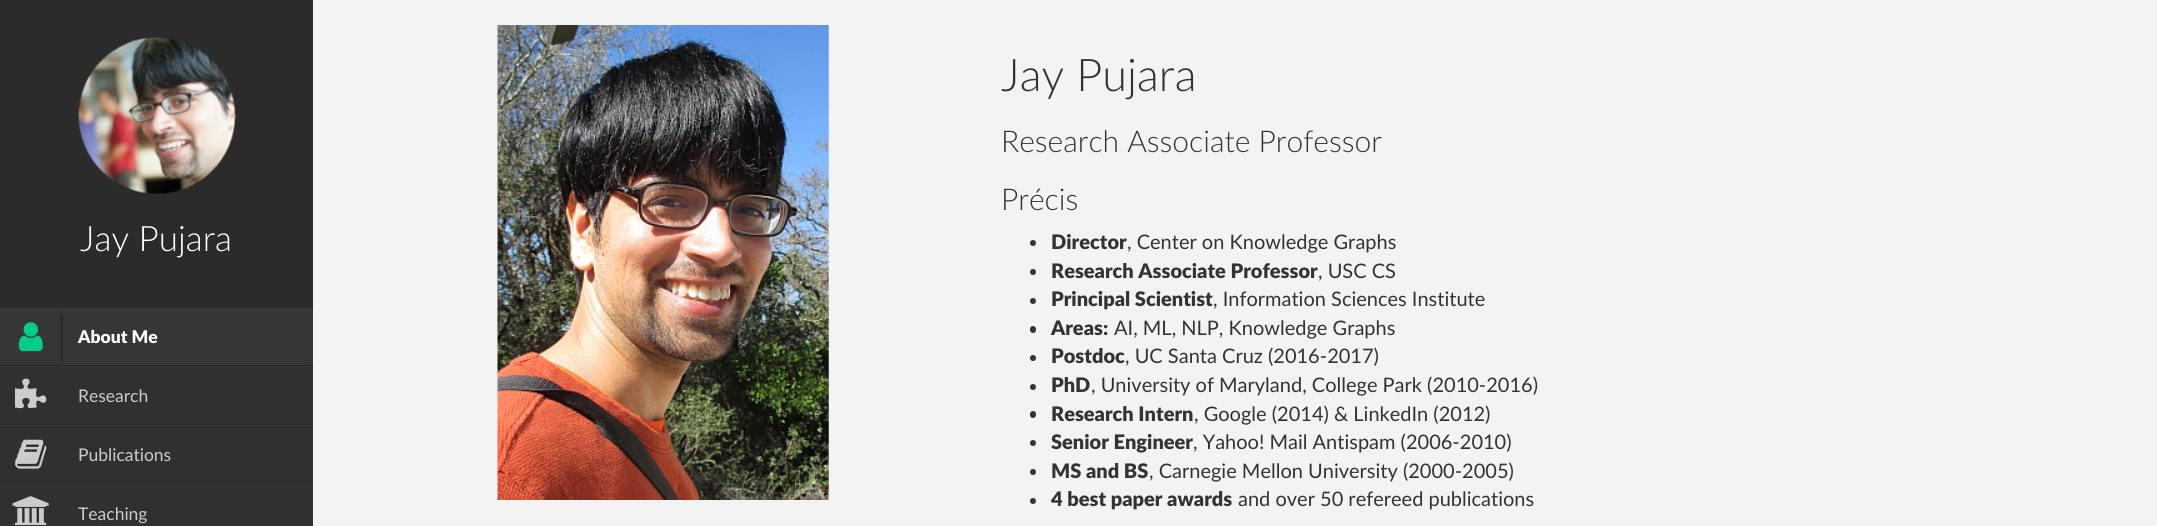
import math
import cairo

surface = cairo.ImageSurface(cairo.FORMAT_RGB24, 2157, 526)
cr = cairo.Context(surface)
options = cairo.FontOptions()
options.set_hint_metrics(cairo.HINT_METRICS_OFF)
options.set_hint_style(cairo.HINT_STYLE_NONE)
cr.set_font_options(options)
cr.set_miter_limit(4)


def rgb(code):
    cr.set_source_rgb(*(v / 255 for v in bytes.fromhex(code[-6:])))


def rrect(x, y, w, h, r):
    cr.new_sub_path()
    for i, (u, v) in enumerate([(x + w - r, y + h - r), (x + r, y + h - r), (x + r, y + r), (x + w - r, y + r)]):
        cr.arc(u, v, r, i * math.pi / 2, (i + 1) * math.pi / 2)
    cr.close_path()


def soft_shadow(x, y, w, h, r, blur, alpha):
    cr.push_group_with_content(cairo.CONTENT_ALPHA)
    cr.set_operator(cairo.OPERATOR_SOURCE)
    for i in range(15, -16, -2):
        e = blur * i / 6
        if min(w, h) + 2 * e > 0:
            cr.set_source_rgba(0, 0, 0, alpha * math.erfc((i - 1) / 8.5) / 2)
            rrect(x - e, y - e, w + 2 * e, h + 2 * e, max(0, min(r + e + blur * .6, min(w, h) / 2 + e)))
            cr.fill()
    cr.mask(cr.pop_group())


def image(path, x, y, w, h):
    cr.save()
    cr.set_source_surface(cairo.ImageSurface.create_from_png(path), x, y)
    cr.rectangle(x, y, w, h)
    cr.fill()
    cr.restore()


rgb("#2b2b2b")
cr.paint()
image("img/1.png", 78, 37, 158, 158)
for x, y, w, h, color in [
    (0, 309, 313, 56, "#363636"),
    (0, 308, 313, 1, "#3d3d3d"),
    (0, 365, 313, 1, "#252525"),
]:
    rgb(color)
    cr.rectangle(x, y, w, h)
    cr.fill()
image("img/2.png", 18, 322, 25, 30)
cr.save()
cr.set_fill_rule(cairo.FILL_RULE_EVEN_ODD)
cr.new_path()
cr.move_to(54, 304)
cr.line_to(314, 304)
cr.line_to(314, 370)
cr.line_to(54, 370)
cr.close_path()
cr.move_to(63, 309)
cr.line_to(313, 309)
cr.line_to(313, 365)
cr.line_to(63, 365)
cr.close_path()
cr.clip()
rgb("#000000")
soft_shadow(64, 314, 240, 46, 0, 3, 1)
cr.restore()
rgb("#303030")
cr.rectangle(0, 367, 313, 57)
cr.fill()
rgb("#373737")
cr.rectangle(0, 366, 313, 1)
cr.fill()
image("img/3.png", 15, 378, 32, 31)
rgb("#303030")
cr.rectangle(0, 426, 313, 57)
cr.fill()
rgb("#373737")
cr.rectangle(0, 425, 313, 1)
cr.fill()
image("img/4.png", 15, 439, 32, 30)
rgb("#303030")
cr.rectangle(0, 485, 313, 41)
cr.fill()
rgb("#373737")
cr.rectangle(0, 484, 313, 1)
cr.fill()
image("img/5.png", 12, 496, 37, 29)
rgb("#f3f3f3")
cr.rectangle(313, 0, 1844, 526)
cr.fill()
image("img/6.png", 497, 25, 332, 475)
rgb("#333333")
cr.arc(1033, 243, 3, 0, 2 * math.pi)
cr.fill()
cr.arc(1033, 272, 3, 0, 2 * math.pi)
cr.fill()
cr.arc(1033, 301, 3, 0, 2 * math.pi)
cr.fill()
rrect(1030, 326, 6, 7, 3)
cr.fill()
cr.arc(1033, 358, 3, 0, 2 * math.pi)
cr.fill()
cr.arc(1033, 387, 3, 0, 2 * math.pi)
cr.fill()
rrect(1030, 411, 6, 7, 3)
cr.fill()
cr.arc(1033, 443, 3, 0, 2 * math.pi)
cr.fill()
cr.arc(1033, 472, 3, 0, 2 * math.pi)
cr.fill()
cr.arc(1033, 501, 3, 0, 2 * math.pi)
cr.fill()
cr.select_font_face("Lato Light")
cr.set_font_size(35)
rgb("#ffffff")
cr.move_to(80, 251)
cr.show_text("Jay Pujara")
cr.select_font_face("Lato Black")
cr.set_font_size(17.5)
cr.move_to(78, 343)
cr.show_text("About Me")
cr.select_font_face("Lato")
rgb("#cccccc")
for x, y, s in [
    (78, 402, "Research"),
    (78, 461, "Publications"),
    (78, 520, "Teaching"),
]:
    cr.move_to(x, y)
    cr.show_text(s)
cr.select_font_face("Lato Light")
cr.set_font_size(45)
rgb("#333333")
cr.move_to(1001, 91)
cr.show_text("Jay Pujara")
cr.set_font_size(30)
cr.move_to(1001, 152)
cr.show_text("Research Associate Professor")
cr.move_to(1001, 210)
cr.show_text("Précis")
cr.select_font_face("Lato Black")
cr.set_font_size(20)
cr.move_to(1051, 249)
cr.show_text("Director")
cr.select_font_face("Lato")
cr.move_to(1127, 249)
cr.show_text(", Center on Knowledge Graphs")
cr.select_font_face("Lato Black")
cr.move_to(1051, 278)
cr.show_text("Research Associate Professor")
cr.select_font_face("Lato")
cr.move_to(1318, 278)
cr.show_text(", USC CS")
cr.select_font_face("Lato Black")
cr.move_to(1051, 306)
cr.show_text("Principal Scientist")
cr.select_font_face("Lato")
cr.move_to(1213, 306)
cr.show_text(", Information Sciences Institute")
cr.select_font_face("Lato Black")
cr.move_to(1051, 335)
cr.show_text("Areas:")
cr.select_font_face("Lato")
cr.move_to(1114, 335)
cr.show_text("AI, ML, NLP, Knowledge Graphs")
cr.select_font_face("Lato Black")
cr.move_to(1051, 363)
cr.show_text("Postdoc")
cr.select_font_face("Lato")
cr.move_to(1125, 363)
cr.show_text(", UC Santa Cruz (2016-2017)")
cr.select_font_face("Lato Black")
cr.move_to(1051, 392)
cr.show_text("PhD")
cr.select_font_face("Lato")
cr.move_to(1091, 392)
cr.show_text(", University of Maryland, College Park (2010-2016)")
cr.select_font_face("Lato Black")
cr.move_to(1051, 421)
cr.show_text("Research Intern")
cr.select_font_face("Lato")
cr.move_to(1194, 421)
cr.show_text(", Google (2014) & LinkedIn (2012)")
cr.select_font_face("Lato Black")
cr.move_to(1051, 449)
cr.show_text("Senior Engineer")
cr.select_font_face("Lato")
cr.move_to(1193, 449)
cr.show_text(", Yahoo! Mail Antispam (2006-2010)")
cr.select_font_face("Lato Black")
cr.move_to(1051, 478)
cr.show_text("MS and BS")
cr.select_font_face("Lato")
cr.move_to(1149, 478)
cr.show_text(", Carnegie Mellon University (2000-2005)")
cr.select_font_face("Lato Black")
cr.move_to(1051, 506)
cr.show_text("4 best paper awards")
cr.select_font_face("Lato")
cr.move_to(1238, 506)
cr.show_text("and over 50 refereed publications")
surface.write_to_png("page.png")
